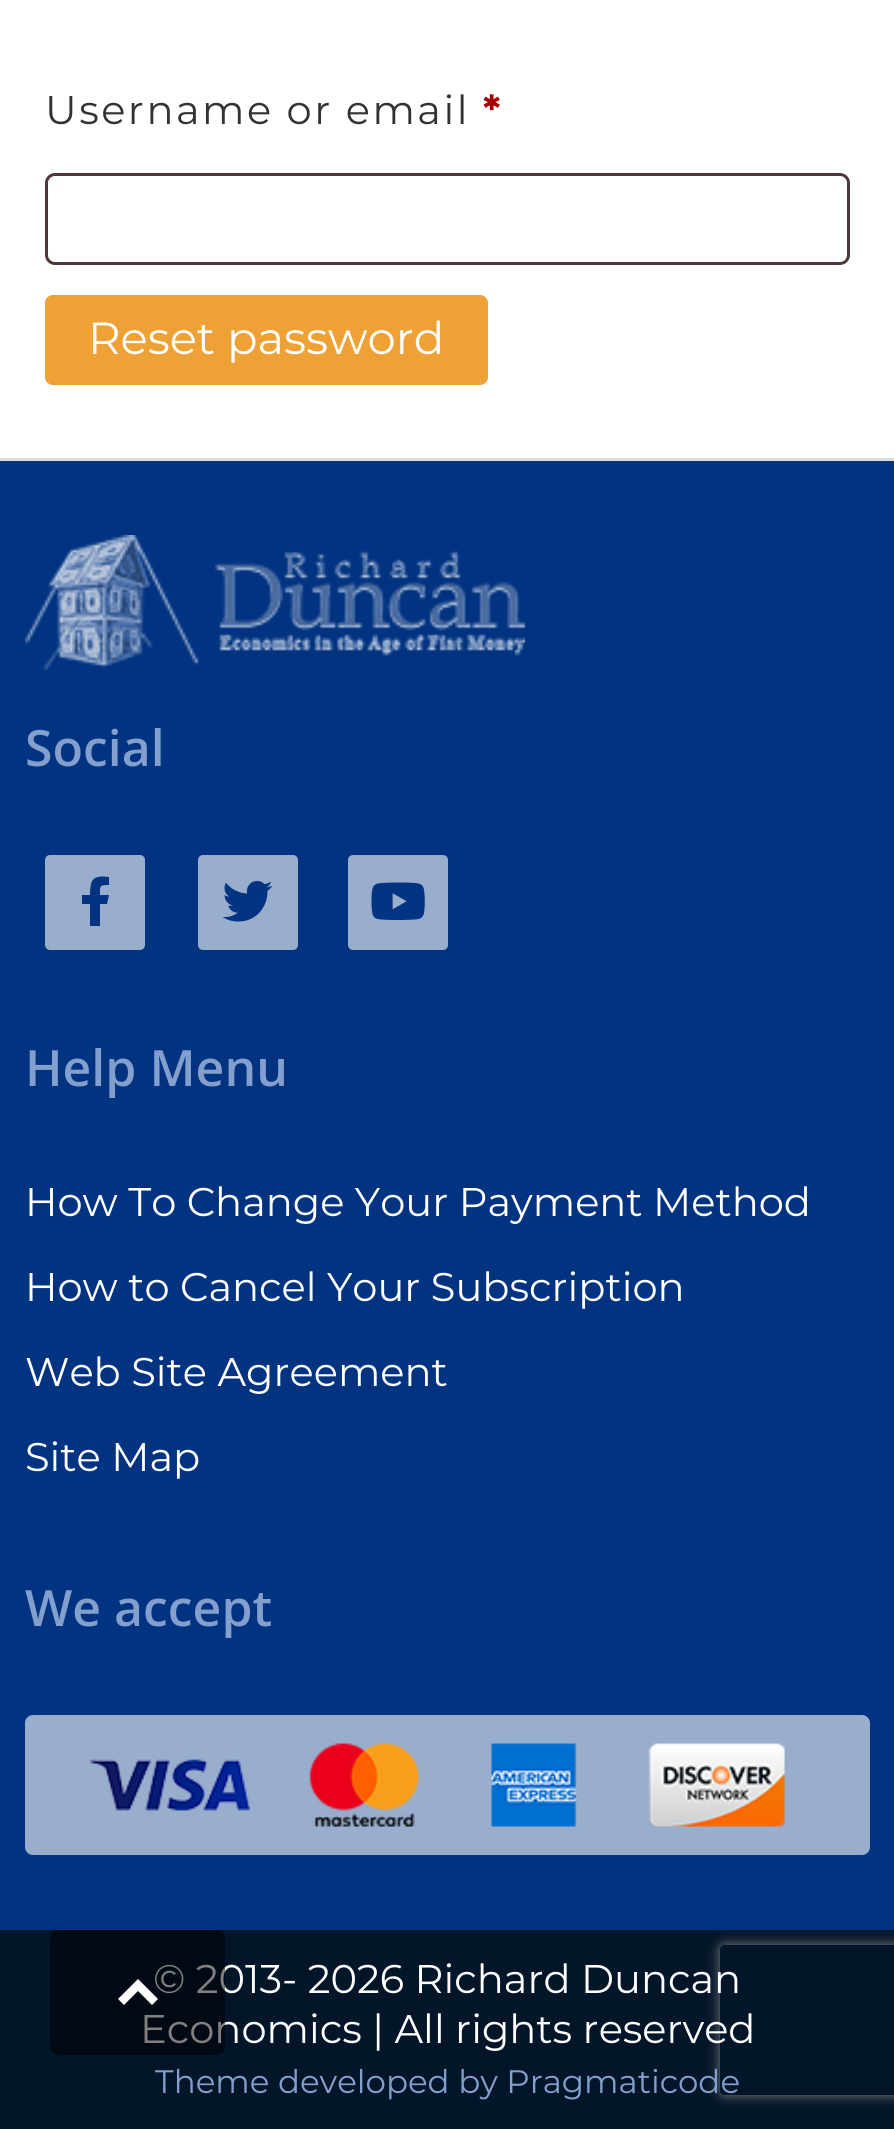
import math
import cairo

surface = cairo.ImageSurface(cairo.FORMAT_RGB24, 894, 2129)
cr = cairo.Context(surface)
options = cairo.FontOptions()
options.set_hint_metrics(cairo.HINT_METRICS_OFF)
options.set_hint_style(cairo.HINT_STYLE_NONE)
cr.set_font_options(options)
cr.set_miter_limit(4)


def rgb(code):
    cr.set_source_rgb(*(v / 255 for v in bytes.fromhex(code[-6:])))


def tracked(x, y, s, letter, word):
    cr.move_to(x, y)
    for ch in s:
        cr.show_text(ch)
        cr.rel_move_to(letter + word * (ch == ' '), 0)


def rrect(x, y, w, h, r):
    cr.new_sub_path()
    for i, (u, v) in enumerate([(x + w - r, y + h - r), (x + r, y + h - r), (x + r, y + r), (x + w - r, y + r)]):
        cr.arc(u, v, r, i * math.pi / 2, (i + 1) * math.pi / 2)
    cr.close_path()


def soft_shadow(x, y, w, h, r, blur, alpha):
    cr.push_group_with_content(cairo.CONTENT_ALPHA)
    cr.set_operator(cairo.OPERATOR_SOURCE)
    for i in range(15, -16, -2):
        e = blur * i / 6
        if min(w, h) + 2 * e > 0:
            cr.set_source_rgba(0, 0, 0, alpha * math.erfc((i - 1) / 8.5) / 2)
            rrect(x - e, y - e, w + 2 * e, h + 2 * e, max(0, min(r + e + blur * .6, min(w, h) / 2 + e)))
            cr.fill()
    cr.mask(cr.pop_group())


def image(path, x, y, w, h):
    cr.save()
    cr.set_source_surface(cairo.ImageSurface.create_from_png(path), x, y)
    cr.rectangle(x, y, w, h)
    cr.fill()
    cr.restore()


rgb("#ffffff")
cr.paint()
rrect(46.5, 174.5, 802, 89, 8.5)
rgb("#4d3939")
cr.set_line_width(3)
cr.stroke()
rgb("#eea236")
rrect(46.5, 296.5, 440, 87, 6.5)
cr.fill_preserve()
cr.stroke()
rgb("#013381")
cr.rectangle(0, 461, 894, 1469)
cr.fill()
rgb("#dddddd")
cr.rectangle(0, 458, 894, 3)
cr.fill()
image("img/1.png", 25, 535, 500, 135)
rgb("#99adcd")
rrect(45, 855, 100, 95, 5)
cr.fill()
rgb("#033481")
cr.new_path()
cr.move_to(107, 904)
cr.line_to(100, 904)
cr.line_to(100, 926)
cr.line_to(90, 926)
cr.line_to(90, 904)
cr.line_to(82, 904)
cr.line_to(82, 895)
cr.line_to(90, 895)
cr.curve_to(90, 879, 93, 875, 109, 877)
cr.line_to(109, 885)
cr.curve_to(99, 885, 100, 886, 100, 895)
cr.line_to(109, 895)
cr.close_path()
cr.fill()
rgb("#99adcd")
rrect(198, 855, 100, 95, 5)
cr.fill()
image("img/2.png", 222, 880, 51, 42)
rrect(348, 855, 100, 95, 5)
cr.fill()
image("img/3.png", 371, 882, 54, 38)
rrect(25, 1715, 845, 140, 8)
cr.fill()
image("img/4.png", 90, 1743, 695, 84)
rgb("#031529")
cr.rectangle(0, 1930, 894, 199)
cr.fill()
cr.save()
cr.set_fill_rule(cairo.FILL_RULE_EVEN_ODD)
cr.new_path()
cr.move_to(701, 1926)
cr.line_to(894, 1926)
cr.line_to(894, 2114)
cr.line_to(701, 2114)
cr.close_path()
cr.move_to(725, 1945)
cr.line_to(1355, 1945)
cr.curve_to(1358, 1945, 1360, 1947, 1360, 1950)
cr.line_to(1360, 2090)
cr.curve_to(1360, 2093, 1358, 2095, 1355, 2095)
cr.line_to(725, 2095)
cr.curve_to(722, 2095, 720, 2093, 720, 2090)
cr.line_to(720, 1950)
cr.curve_to(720, 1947, 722, 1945, 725, 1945)
cr.close_path()
cr.clip()
rgb("#808080")
soft_shadow(720, 1945, 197, 150, 5, 6, 1)
cr.restore()
cr.select_font_face("Montserrat")
cr.set_font_size(40)
rgb("#333333")
tracked(45, 124, "Username or email", 2.5, 0)
cr.select_font_face("Montserrat", cairo.FONT_SLANT_NORMAL, cairo.FONT_WEIGHT_BOLD)
rgb("#aa0000")
tracked(483, 124, "*", 2.5, 0)
cr.select_font_face("Montserrat")
cr.set_font_size(45)
rgb("#ffffff")
cr.move_to(88, 354)
cr.show_text("Reset password")
cr.select_font_face("Open Sans SemiBold")
cr.set_font_size(50)
rgb("#829fcd")
cr.move_to(25, 766)
cr.show_text("Social")
cr.move_to(25, 1086)
cr.show_text("Help Menu")
cr.select_font_face("Montserrat")
cr.set_font_size(40)
rgb("#ffffff")
for x, y, s in [
    (25, 1216, "How To Change Your Payment Method"),
    (25, 1301, "How to Cancel Your Subscription"),
    (25, 1386, "Web Site Agreement"),
    (25, 1471, "Site Map"),
]:
    cr.move_to(x, y)
    cr.show_text(s)
cr.select_font_face("Open Sans SemiBold")
cr.set_font_size(50)
rgb("#829fcd")
cr.move_to(25, 1626)
cr.show_text("We accept")
cr.select_font_face("Montserrat")
cr.set_font_size(40)
rgb("#ffffff")
cr.move_to(153, 1993)
cr.show_text("© 2013- 2026 Richard Duncan")
cr.move_to(140, 2043)
cr.show_text("Economics | All rights reserved")
cr.set_font_size(32.5)
rgb("#829fcd")
cr.move_to(155, 2093)
cr.show_text("Theme developed by Pragmaticode")
cr.set_source_rgba(0, 0, 0, 0.5)
rrect(50, 1930, 175, 125, 8)
cr.fill()
rgb("#ffffff")
cr.new_path()
cr.move_to(138, 1979)
cr.line_to(158, 1999)
cr.line_to(152, 2005)
cr.line_to(138, 1991)
cr.line_to(124, 2005)
cr.line_to(118, 1999)
cr.close_path()
cr.fill()
surface.write_to_png("page.png")
